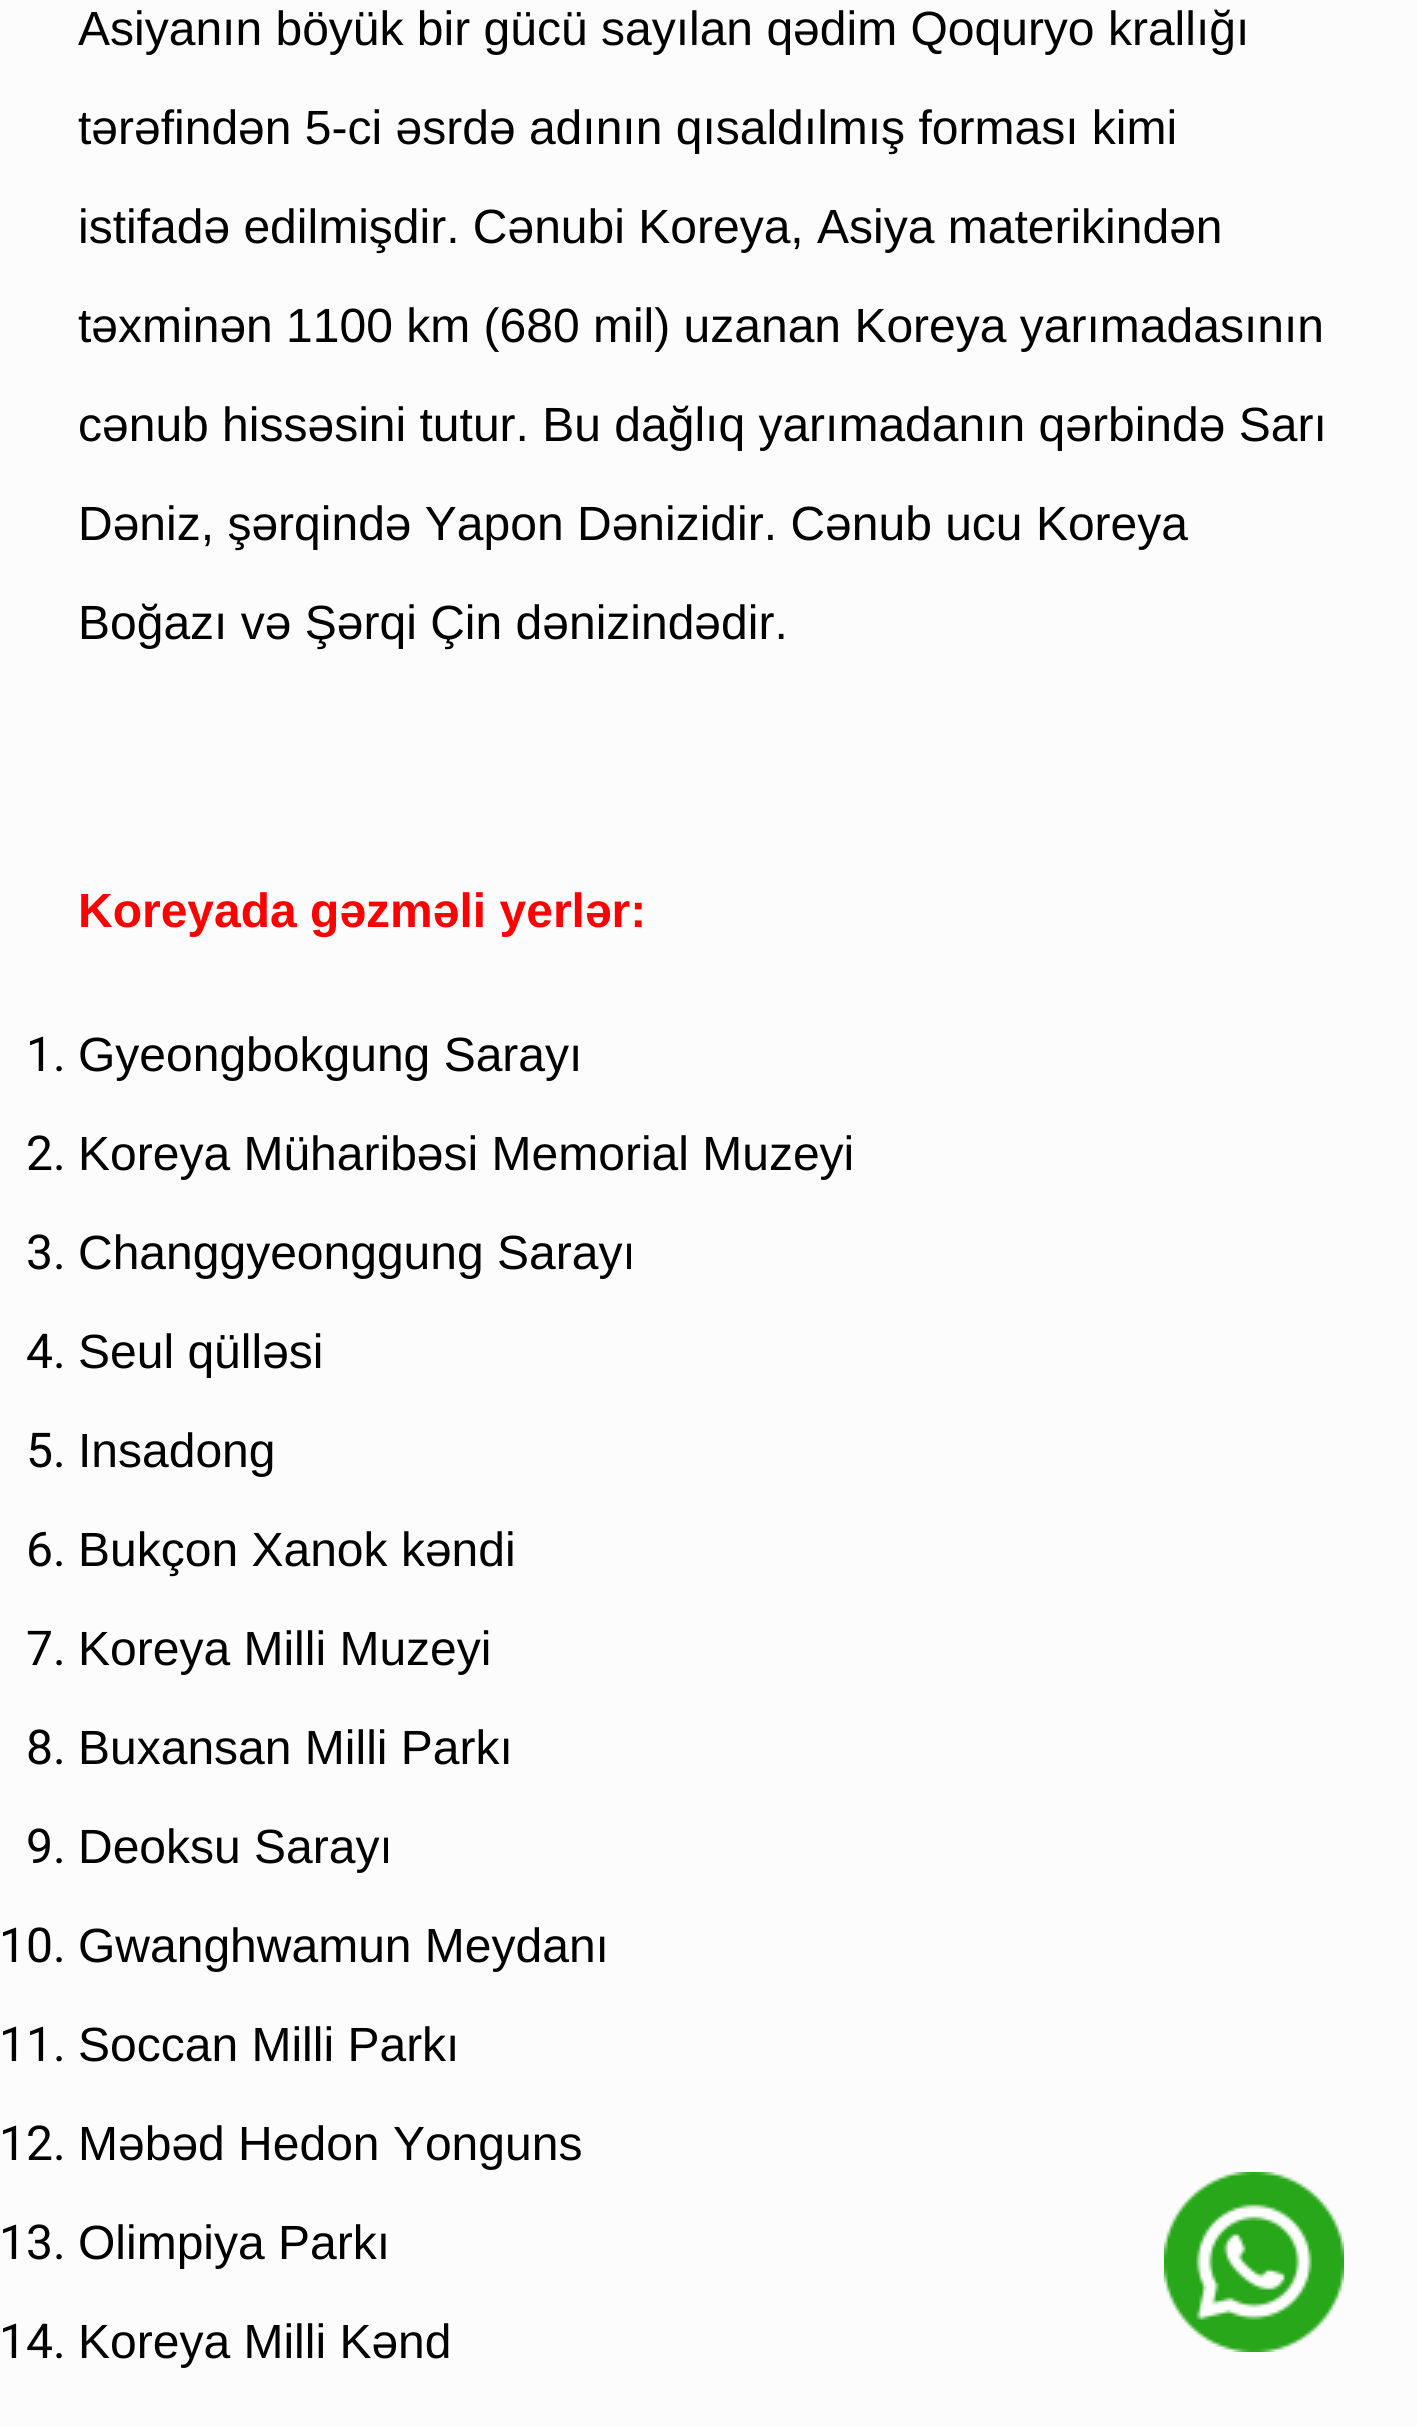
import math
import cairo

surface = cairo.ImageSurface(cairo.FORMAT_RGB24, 1417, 2427)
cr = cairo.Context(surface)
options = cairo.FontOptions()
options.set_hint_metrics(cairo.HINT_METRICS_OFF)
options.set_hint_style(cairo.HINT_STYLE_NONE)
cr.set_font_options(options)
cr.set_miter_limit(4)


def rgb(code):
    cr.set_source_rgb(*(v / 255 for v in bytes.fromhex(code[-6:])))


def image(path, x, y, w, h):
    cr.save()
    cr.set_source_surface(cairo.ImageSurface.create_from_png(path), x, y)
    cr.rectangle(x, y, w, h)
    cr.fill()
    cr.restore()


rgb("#fcfcfc")
cr.paint()
image("img/1.png", 1164, 2172, 180, 180)
cr.select_font_face("Liberation Sans")
cr.set_font_size(48)
rgb("#000000")
for x, y, s in [
    (78, 45, "Asiyanın böyük bir gücü sayılan qədim Qoquryo krallığı"),
    (78, 144, "tərəfindən 5-ci əsrdə adının qısaldılmış forması kimi"),
    (78, 243, "istifadə edilmişdir. Cənubi Koreya, Asiya materikindən"),
    (78, 342, "təxminən 1100 km (680 mil) uzanan Koreya yarımadasının"),
    (78, 441, "cənub hissəsini tutur. Bu dağlıq yarımadanın qərbində Sarı"),
    (78, 540, "Dəniz, şərqində Yapon Dənizidir. Cənub ucu Koreya"),
    (78, 639, "Boğazı və Şərqi Çin dənizindədir."),
]:
    cr.move_to(x, y)
    cr.show_text(s)
cr.select_font_face("Liberation Sans", cairo.FONT_SLANT_NORMAL, cairo.FONT_WEIGHT_BOLD)
rgb("#ff0000")
cr.move_to(78, 927)
cr.show_text("Koreyada gəzməli yerlər:")
cr.select_font_face("Roboto")
rgb("#000000")
cr.move_to(26, 1071)
cr.show_text("1.")
cr.select_font_face("Liberation Sans")
cr.move_to(78, 1071)
cr.show_text("Gyeongbokgung Sarayı")
cr.select_font_face("Roboto")
cr.move_to(26, 1170)
cr.show_text("2.")
cr.select_font_face("Liberation Sans")
cr.move_to(78, 1170)
cr.show_text("Koreya Müharibəsi Memorial Muzeyi")
cr.select_font_face("Roboto")
cr.move_to(26, 1269)
cr.show_text("3.")
cr.select_font_face("Liberation Sans")
cr.move_to(78, 1269)
cr.show_text("Changgyeonggung Sarayı")
cr.select_font_face("Roboto")
cr.move_to(26, 1368)
cr.show_text("4.")
cr.select_font_face("Liberation Sans")
cr.move_to(78, 1368)
cr.show_text("Seul qülləsi")
cr.select_font_face("Roboto")
cr.move_to(26, 1467)
cr.show_text("5.")
cr.select_font_face("Liberation Sans")
cr.move_to(78, 1467)
cr.show_text("Insadong")
cr.select_font_face("Roboto")
cr.move_to(26, 1566)
cr.show_text("6.")
cr.select_font_face("Liberation Sans")
cr.move_to(78, 1566)
cr.show_text("Bukçon Xanok kəndi")
cr.select_font_face("Roboto")
cr.move_to(26, 1665)
cr.show_text("7.")
cr.select_font_face("Liberation Sans")
cr.move_to(78, 1665)
cr.show_text("Koreya Milli Muzeyi")
cr.select_font_face("Roboto")
cr.move_to(26, 1764)
cr.show_text("8.")
cr.select_font_face("Liberation Sans")
cr.move_to(78, 1764)
cr.show_text("Buxansan Milli Parkı")
cr.select_font_face("Roboto")
cr.move_to(26, 1863)
cr.show_text("9.")
cr.select_font_face("Liberation Sans")
cr.move_to(78, 1863)
cr.show_text("Deoksu Sarayı")
cr.select_font_face("Roboto")
cr.move_to(-1, 1962)
cr.show_text("10.")
cr.select_font_face("Liberation Sans")
cr.move_to(78, 1962)
cr.show_text("Gwanghwamun Meydanı")
cr.select_font_face("Roboto")
cr.move_to(-1, 2061)
cr.show_text("11.")
cr.select_font_face("Liberation Sans")
cr.move_to(78, 2061)
cr.show_text("Soccan Milli Parkı")
cr.select_font_face("Roboto")
cr.move_to(-1, 2160)
cr.show_text("12.")
cr.select_font_face("Liberation Sans")
cr.move_to(78, 2160)
cr.show_text("Məbəd Hedon Yonguns")
cr.select_font_face("Roboto")
cr.move_to(-1, 2259)
cr.show_text("13.")
cr.select_font_face("Liberation Sans")
cr.move_to(78, 2259)
cr.show_text("Olimpiya Parkı")
cr.select_font_face("Roboto")
cr.move_to(-1, 2358)
cr.show_text("14.")
cr.select_font_face("Liberation Sans")
cr.move_to(78, 2358)
cr.show_text("Koreya Milli Kənd")
surface.write_to_png("page.png")
